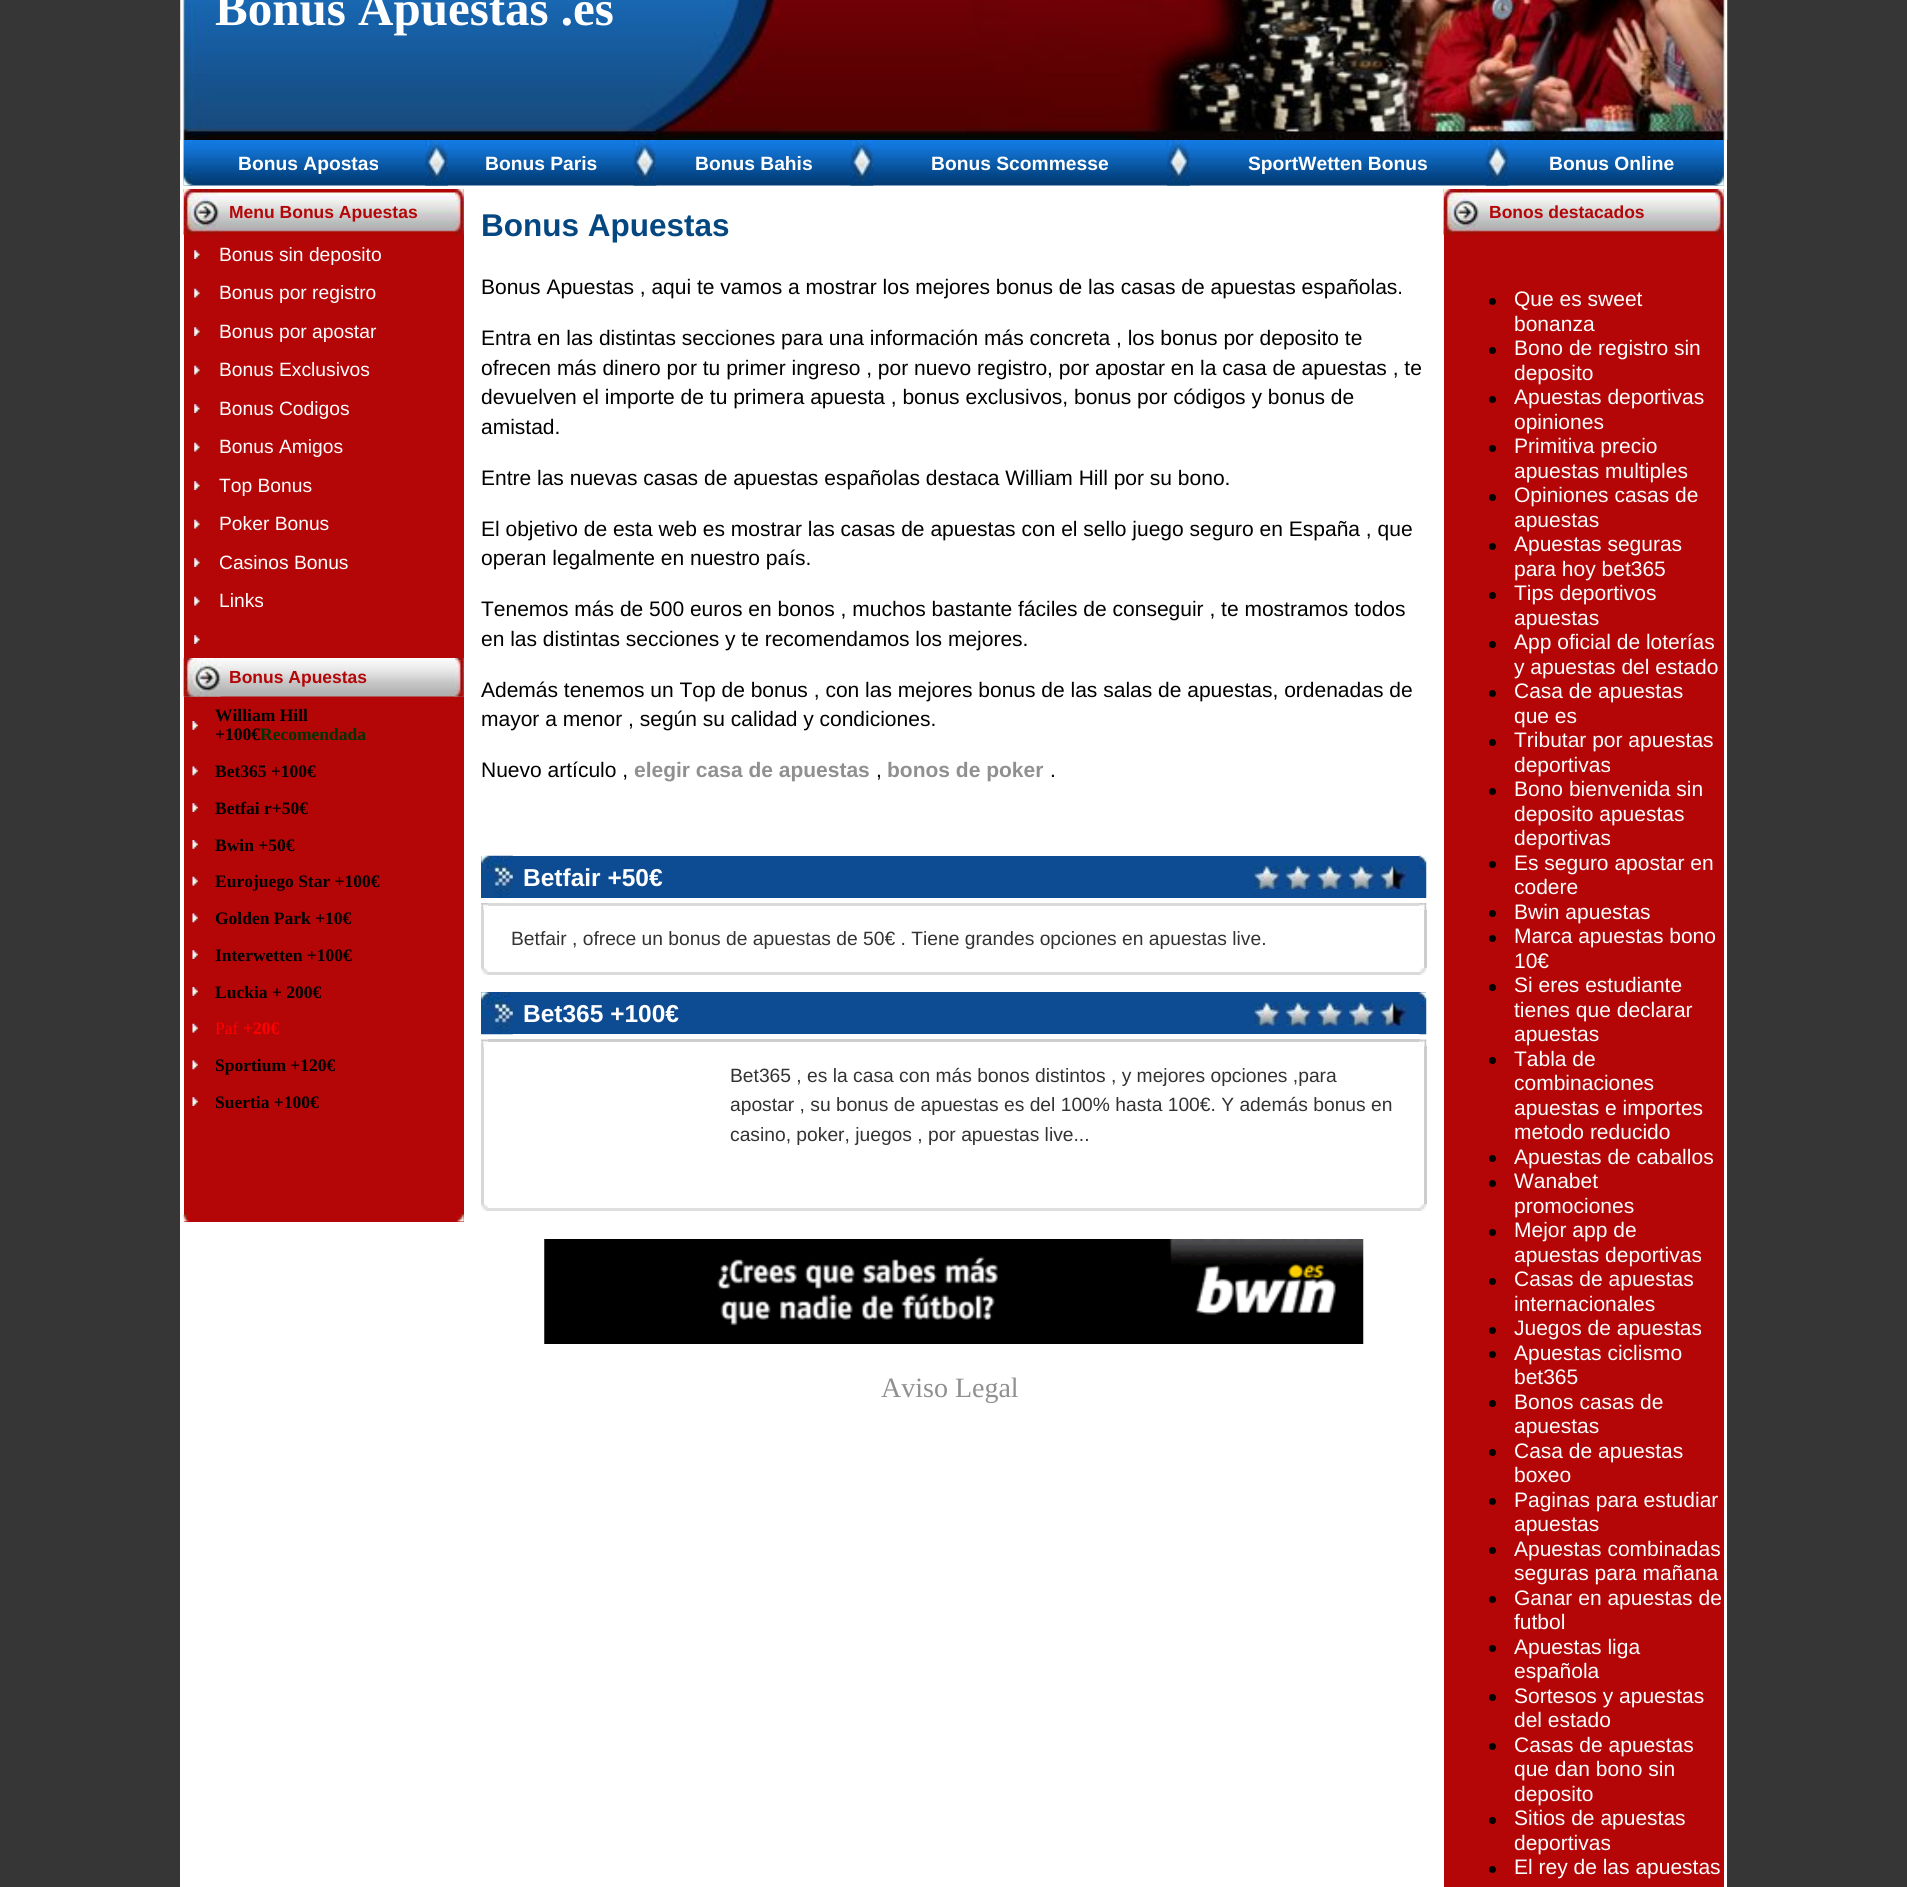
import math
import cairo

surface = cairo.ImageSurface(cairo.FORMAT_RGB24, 1907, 1887)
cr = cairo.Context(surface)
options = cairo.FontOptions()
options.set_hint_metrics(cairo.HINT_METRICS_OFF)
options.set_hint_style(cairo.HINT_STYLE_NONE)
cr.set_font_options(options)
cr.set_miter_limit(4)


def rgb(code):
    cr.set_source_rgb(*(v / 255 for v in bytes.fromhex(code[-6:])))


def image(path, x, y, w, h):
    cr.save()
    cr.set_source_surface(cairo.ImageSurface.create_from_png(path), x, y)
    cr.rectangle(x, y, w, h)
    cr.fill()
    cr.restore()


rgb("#363636")
cr.paint()
rgb("#ffffff")
cr.rectangle(180, 0, 1547, 1887)
cr.fill()
image("img/1.png", 180, 0, 1548, 140)
image("img/2.png", 180, 0, 599, 140)
image("img/3.png", 966, 0, 762, 140)
image("img/4.png", 183, 140, 1541, 46)
image("img/5.png", 183, 140, 10, 46)
image("img/6.png", 425, 140, 23, 46)
image("img/7.png", 633, 140, 24, 46)
image("img/7.png", 850, 140, 24, 46)
image("img/6.png", 1167, 140, 23, 46)
image("img/8.png", 1485, 140, 24, 46)
image("img/9.png", 1715, 140, 9, 46)
rgb("#b40607")
cr.rectangle(184, 189, 280, 1033)
cr.fill()
image("img/10.png", 183, 189, 281, 46)
image("img/11.png", 183, 189, 36, 46)
image("img/12.png", 455, 189, 9, 46)
image("img/13.png", 194, 250, 6, 9)
image("img/14.png", 194, 288, 6, 10)
image("img/13.png", 194, 327, 6, 9)
image("img/14.png", 194, 365, 6, 10)
image("img/13.png", 194, 404, 6, 9)
image("img/14.png", 194, 442, 6, 10)
image("img/13.png", 194, 481, 6, 9)
image("img/14.png", 194, 519, 6, 10)
image("img/13.png", 194, 558, 6, 9)
image("img/14.png", 194, 596, 6, 10)
image("img/13.png", 194, 635, 6, 9)
image("img/15.png", 183, 658, 281, 39)
image("img/16.png", 183, 658, 38, 39)
image("img/17.png", 455, 658, 9, 39)
image("img/18.png", 192, 721, 6, 9)
image("img/19.png", 192, 766, 6, 10)
image("img/20.png", 192, 803, 6, 9)
image("img/18.png", 192, 840, 6, 9)
image("img/21.png", 192, 876, 6, 10)
image("img/19.png", 192, 913, 6, 10)
image("img/20.png", 192, 950, 6, 9)
image("img/18.png", 192, 987, 6, 9)
image("img/21.png", 192, 1023, 6, 10)
image("img/19.png", 192, 1060, 6, 10)
image("img/20.png", 192, 1097, 6, 9)
image("img/22.png", 183, 1214, 8, 8)
image("img/23.png", 456, 1214, 8, 8)
rgb("#0d4c93")
cr.rectangle(481, 856, 945, 42)
cr.fill()
image("img/24.png", 481, 855, 32, 43)
image("img/25.png", 1254, 866, 26, 23)
image("img/26.png", 1286, 866, 25, 23)
image("img/25.png", 1317, 866, 26, 23)
image("img/27.png", 1349, 866, 25, 23)
image("img/28.png", 1380, 866, 26, 23)
image("img/29.png", 1419, 855, 8, 43)
rgb("#dadada")
cr.rectangle(488, 903, 932, 3)
cr.fill()
image("img/30.png", 481, 903, 8, 7)
image("img/31.png", 1419, 903, 8, 7)
for x, y, w, h, color in [
    (481, 910, 3, 58, "#d7d7d7"),
    (1424, 910, 3, 58, "#cdcdcd"),
    (488, 972, 932, 3, "#dadada"),
]:
    rgb(color)
    cr.rectangle(x, y, w, h)
    cr.fill()
image("img/32.png", 481, 967, 8, 8)
image("img/33.png", 1419, 967, 8, 8)
rgb("#0d4c93")
cr.rectangle(481, 992, 945, 42)
cr.fill()
image("img/34.png", 481, 992, 32, 43)
image("img/35.png", 1254, 1002, 26, 24)
image("img/36.png", 1286, 1002, 25, 24)
image("img/35.png", 1317, 1002, 26, 24)
image("img/37.png", 1349, 1002, 25, 24)
image("img/38.png", 1380, 1002, 26, 24)
image("img/39.png", 1419, 992, 8, 43)
rgb("#cdcdcd")
cr.rectangle(488, 1039, 932, 3)
cr.fill()
rgb("#d7d7d7")
cr.rectangle(481, 1046, 3, 158)
cr.fill()
image("img/40.png", 481, 1039, 8, 8)
rgb("#cdcdcd")
cr.rectangle(1424, 1046, 3, 158)
cr.fill()
image("img/41.png", 1419, 1039, 8, 8)
rgb("#dfdfdf")
cr.rectangle(488, 1208, 932, 3)
cr.fill()
image("img/42.png", 481, 1204, 8, 7)
image("img/43.png", 1419, 1204, 8, 7)
image("img/44.png", 544, 1239, 820, 105)
rgb("#b40607")
cr.rectangle(1444, 189, 280, 1698)
cr.fill()
image("img/10.png", 1443, 189, 281, 46)
image("img/11.png", 1443, 189, 36, 46)
image("img/12.png", 1715, 189, 9, 46)
rgb("#000000")
cr.arc(1492.5, 301.5, 3.5, 0, 2 * math.pi)
cr.fill()
cr.arc(1492.5, 350.5, 3.5, 0, 2 * math.pi)
cr.fill()
cr.arc(1492.5, 399.5, 3.5, 0, 2 * math.pi)
cr.fill()
cr.arc(1492.5, 448.5, 3.5, 0, 2 * math.pi)
cr.fill()
cr.arc(1492.5, 497.5, 3.5, 0, 2 * math.pi)
cr.fill()
cr.arc(1492.5, 546.5, 3.5, 0, 2 * math.pi)
cr.fill()
cr.arc(1492.5, 595.5, 3.5, 0, 2 * math.pi)
cr.fill()
cr.arc(1492.5, 644.5, 3.5, 0, 2 * math.pi)
cr.fill()
cr.arc(1492.5, 693.5, 3.5, 0, 2 * math.pi)
cr.fill()
cr.arc(1492.5, 742.5, 3.5, 0, 2 * math.pi)
cr.fill()
cr.arc(1492.5, 791.5, 3.5, 0, 2 * math.pi)
cr.fill()
cr.arc(1492.5, 864.5, 3.5, 0, 2 * math.pi)
cr.fill()
cr.arc(1492.5, 913.5, 3.5, 0, 2 * math.pi)
cr.fill()
cr.arc(1492.5, 938.5, 3.5, 0, 2 * math.pi)
cr.fill()
cr.arc(1492.5, 987.5, 3.5, 0, 2 * math.pi)
cr.fill()
cr.arc(1492.5, 1060.5, 3.5, 0, 2 * math.pi)
cr.fill()
cr.arc(1492.5, 1158.5, 3.5, 0, 2 * math.pi)
cr.fill()
cr.arc(1492.5, 1183.5, 3.5, 0, 2 * math.pi)
cr.fill()
cr.arc(1492.5, 1232.5, 3.5, 0, 2 * math.pi)
cr.fill()
cr.arc(1492.5, 1281.5, 3.5, 0, 2 * math.pi)
cr.fill()
cr.arc(1492.5, 1330.5, 3.5, 0, 2 * math.pi)
cr.fill()
cr.arc(1492.5, 1354.5, 3.5, 0, 2 * math.pi)
cr.fill()
cr.arc(1492.5, 1403.5, 3.5, 0, 2 * math.pi)
cr.fill()
cr.arc(1492.5, 1452.5, 3.5, 0, 2 * math.pi)
cr.fill()
cr.arc(1492.5, 1501.5, 3.5, 0, 2 * math.pi)
cr.fill()
cr.arc(1492.5, 1550.5, 3.5, 0, 2 * math.pi)
cr.fill()
cr.arc(1492.5, 1599.5, 3.5, 0, 2 * math.pi)
cr.fill()
cr.arc(1492.5, 1648.5, 3.5, 0, 2 * math.pi)
cr.fill()
cr.arc(1492.5, 1697.5, 3.5, 0, 2 * math.pi)
cr.fill()
cr.arc(1492.5, 1746.5, 3.5, 0, 2 * math.pi)
cr.fill()
cr.arc(1492.5, 1820.5, 3.5, 0, 2 * math.pi)
cr.fill()
cr.arc(1492.5, 1869.5, 3.5, 0, 2 * math.pi)
cr.fill()
cr.select_font_face("Liberation Serif", cairo.FONT_SLANT_NORMAL, cairo.FONT_WEIGHT_BOLD)
cr.set_font_size(49)
rgb("#ffffff")
cr.move_to(215, 25)
cr.show_text("Bonus Apuestas .es")
cr.select_font_face("Liberation Sans", cairo.FONT_SLANT_NORMAL, cairo.FONT_WEIGHT_BOLD)
cr.set_font_size(19.25)
for x, y, s in [
    (238, 170, "Bonus Apostas"),
    (485, 170, "Bonus Paris"),
    (695, 170, "Bonus Bahis"),
    (931, 170, "Bonus Scommesse"),
    (1248, 170, "SportWetten Bonus"),
    (1549, 170, "Bonus Online"),
]:
    cr.move_to(x, y)
    cr.show_text(s)
cr.set_font_size(17.5)
rgb("#b40607")
cr.move_to(229, 218)
cr.show_text("Menu Bonus Apuestas")
cr.select_font_face("Liberation Sans")
cr.set_font_size(19.25)
rgb("#ffffff")
for x, y, s in [
    (219, 261, "Bonus sin deposito"),
    (219, 299, "Bonus por registro"),
    (219, 338, "Bonus por apostar"),
    (219, 376, "Bonus Exclusivos"),
    (219, 415, "Bonus Codigos"),
    (219, 453, "Bonus Amigos"),
    (219, 492, "Top Bonus"),
    (219, 530, "Poker Bonus"),
    (219, 569, "Casinos Bonus"),
    (219, 607, "Links"),
]:
    cr.move_to(x, y)
    cr.show_text(s)
cr.select_font_face("Liberation Sans", cairo.FONT_SLANT_NORMAL, cairo.FONT_WEIGHT_BOLD)
cr.set_font_size(17.5)
rgb("#b40607")
cr.move_to(229, 683)
cr.show_text("Bonus Apuestas")
cr.select_font_face("Liberation Serif", cairo.FONT_SLANT_NORMAL, cairo.FONT_WEIGHT_BOLD)
rgb("#000000")
cr.move_to(215, 721)
cr.show_text("William Hill")
cr.move_to(215, 740)
cr.show_text("+100€")
rgb("#003300")
cr.move_to(260, 740)
cr.show_text("Recomendada")
rgb("#000000")
for x, y, s in [
    (215, 777, "Bet365 +100€"),
    (215, 814, "Betfai r+50€"),
    (215, 851, "Bwin +50€"),
    (215, 887, "Eurojuego Star +100€"),
    (215, 924, "Golden Park +10€"),
    (215, 961, "Interwetten +100€"),
    (215, 998, "Luckia + 200€"),
]:
    cr.move_to(x, y)
    cr.show_text(s)
cr.select_font_face("Liberation Serif")
rgb("#ff0000")
cr.move_to(215, 1034)
cr.show_text("Paf")
cr.select_font_face("Liberation Serif", cairo.FONT_SLANT_NORMAL, cairo.FONT_WEIGHT_BOLD)
cr.move_to(243, 1034)
cr.show_text("+20€")
rgb("#000000")
cr.move_to(215, 1071)
cr.show_text("Sportium +120€")
cr.move_to(215, 1108)
cr.show_text("Suertia +100€")
cr.select_font_face("Liberation Sans", cairo.FONT_SLANT_NORMAL, cairo.FONT_WEIGHT_BOLD)
cr.set_font_size(31.5)
rgb("#054781")
cr.move_to(481, 236)
cr.show_text("Bonus Apuestas")
cr.select_font_face("Liberation Sans")
cr.set_font_size(21)
rgb("#000000")
for x, y, s in [
    (481, 294, "Bonus Apuestas , aqui te vamos a mostrar los mejores bonus de las casas de apuestas españolas."),
    (481, 345, "Entra en las distintas secciones para una información más concreta , los bonus por deposito te"),
    (481, 375, "ofrecen más dinero por tu primer ingreso , por nuevo registro, por apostar en la casa de apuestas , te"),
    (481, 404, "devuelven el importe de tu primera apuesta , bonus exclusivos, bonus por códigos y bonus de"),
    (481, 434, "amistad."),
    (481, 485, "Entre las nuevas casas de apuestas españolas destaca William Hill por su bono."),
    (481, 536, "El objetivo de esta web es mostrar las casas de apuestas con el sello juego seguro en España , que"),
    (481, 565, "operan legalmente en nuestro país."),
    (481, 616, "Tenemos más de 500 euros en bonos , muchos bastante fáciles de conseguir , te mostramos todos"),
    (481, 646, "en las distintas secciones y te recomendamos los mejores."),
    (481, 697, "Además tenemos un Top de bonus , con las mejores bonus de las salas de apuestas, ordenadas de"),
    (481, 726, "mayor a menor , según su calidad y condiciones."),
    (481, 777, "Nuevo artículo ,"),
]:
    cr.move_to(x, y)
    cr.show_text(s)
cr.select_font_face("Liberation Sans", cairo.FONT_SLANT_NORMAL, cairo.FONT_WEIGHT_BOLD)
rgb("#909090")
cr.move_to(634, 777)
cr.show_text("elegir casa de apuestas")
cr.select_font_face("Liberation Sans")
rgb("#000000")
cr.move_to(876, 777)
cr.show_text(",")
cr.select_font_face("Liberation Sans", cairo.FONT_SLANT_NORMAL, cairo.FONT_WEIGHT_BOLD)
rgb("#909090")
cr.move_to(887, 777)
cr.show_text("bonos de poker")
cr.select_font_face("Liberation Sans")
rgb("#000000")
cr.move_to(1050, 777)
cr.show_text(".")
cr.select_font_face("Liberation Sans", cairo.FONT_SLANT_NORMAL, cairo.FONT_WEIGHT_BOLD)
cr.set_font_size(24.5)
rgb("#ffffff")
cr.move_to(523, 886)
cr.show_text("Betfair +50€")
cr.select_font_face("Liberation Sans")
cr.set_font_size(19.25)
rgb("#333333")
cr.move_to(511, 945)
cr.show_text("Betfair , ofrece un bonus de apuestas de 50€ . Tiene grandes opciones en apuestas live.")
cr.select_font_face("Liberation Sans", cairo.FONT_SLANT_NORMAL, cairo.FONT_WEIGHT_BOLD)
cr.set_font_size(24.5)
rgb("#ffffff")
cr.move_to(523, 1022)
cr.show_text("Bet365 +100€")
cr.select_font_face("Liberation Sans")
cr.set_font_size(19.25)
rgb("#333333")
for x, y, s in [
    (730, 1082, "Bet365 , es la casa con más bonos distintos , y mejores opciones ,para"),
    (730, 1111, "apostar , su bonus de apuestas es del 100% hasta 100€. Y además bonus en"),
    (730, 1141, "casino, poker, juegos , por apuestas live..."),
]:
    cr.move_to(x, y)
    cr.show_text(s)
cr.select_font_face("Liberation Serif")
cr.set_font_size(28)
rgb("#909090")
cr.move_to(881, 1397)
cr.show_text("Aviso Legal")
cr.select_font_face("Liberation Sans", cairo.FONT_SLANT_NORMAL, cairo.FONT_WEIGHT_BOLD)
cr.set_font_size(17.5)
rgb("#b40607")
cr.move_to(1489, 218)
cr.show_text("Bonos destacados")
cr.select_font_face("Liberation Sans")
cr.set_font_size(21)
rgb("#ffffff")
for x, y, s in [
    (1514, 306, "Que es sweet"),
    (1514, 331, "bonanza"),
    (1514, 355, "Bono de registro sin"),
    (1514, 380, "deposito"),
    (1514, 404, "Apuestas deportivas"),
    (1514, 429, "opiniones"),
    (1514, 453, "Primitiva precio"),
    (1514, 478, "apuestas multiples"),
    (1514, 502, "Opiniones casas de"),
    (1514, 527, "apuestas"),
    (1514, 551, "Apuestas seguras"),
    (1514, 576, "para hoy bet365"),
    (1514, 600, "Tips deportivos"),
    (1514, 625, "apuestas"),
    (1514, 649, "App oficial de loterías"),
    (1514, 674, "y apuestas del estado"),
    (1514, 698, "Casa de apuestas"),
    (1514, 723, "que es"),
    (1514, 747, "Tributar por apuestas"),
    (1514, 772, "deportivas"),
    (1514, 796, "Bono bienvenida sin"),
    (1514, 821, "deposito apuestas"),
    (1514, 845, "deportivas"),
    (1514, 870, "Es seguro apostar en"),
    (1514, 894, "codere"),
    (1514, 919, "Bwin apuestas"),
    (1514, 943, "Marca apuestas bono"),
    (1514, 968, "10€"),
    (1514, 992, "Si eres estudiante"),
    (1514, 1017, "tienes que declarar"),
    (1514, 1041, "apuestas"),
    (1514, 1066, "Tabla de"),
    (1514, 1090, "combinaciones"),
    (1514, 1115, "apuestas e importes"),
    (1514, 1139, "metodo reducido"),
    (1514, 1164, "Apuestas de caballos"),
    (1514, 1188, "Wanabet"),
    (1514, 1213, "promociones"),
    (1514, 1237, "Mejor app de"),
    (1514, 1262, "apuestas deportivas"),
    (1514, 1286, "Casas de apuestas"),
    (1514, 1311, "internacionales"),
    (1514, 1335, "Juegos de apuestas"),
    (1514, 1360, "Apuestas ciclismo"),
    (1514, 1384, "bet365"),
    (1514, 1409, "Bonos casas de"),
    (1514, 1433, "apuestas"),
    (1514, 1458, "Casa de apuestas"),
    (1514, 1482, "boxeo"),
    (1514, 1507, "Paginas para estudiar"),
    (1514, 1531, "apuestas"),
    (1514, 1556, "Apuestas combinadas"),
    (1514, 1580, "seguras para mañana"),
    (1514, 1605, "Ganar en apuestas de"),
    (1514, 1629, "futbol"),
    (1514, 1654, "Apuestas liga"),
    (1514, 1678, "española"),
    (1514, 1703, "Sortesos y apuestas"),
    (1514, 1727, "del estado"),
    (1514, 1752, "Casas de apuestas"),
    (1514, 1776, "que dan bono sin"),
    (1514, 1801, "deposito"),
    (1514, 1825, "Sitios de apuestas"),
    (1514, 1850, "deportivas"),
    (1514, 1874, "El rey de las apuestas"),
]:
    cr.move_to(x, y)
    cr.show_text(s)
surface.write_to_png("page.png")
